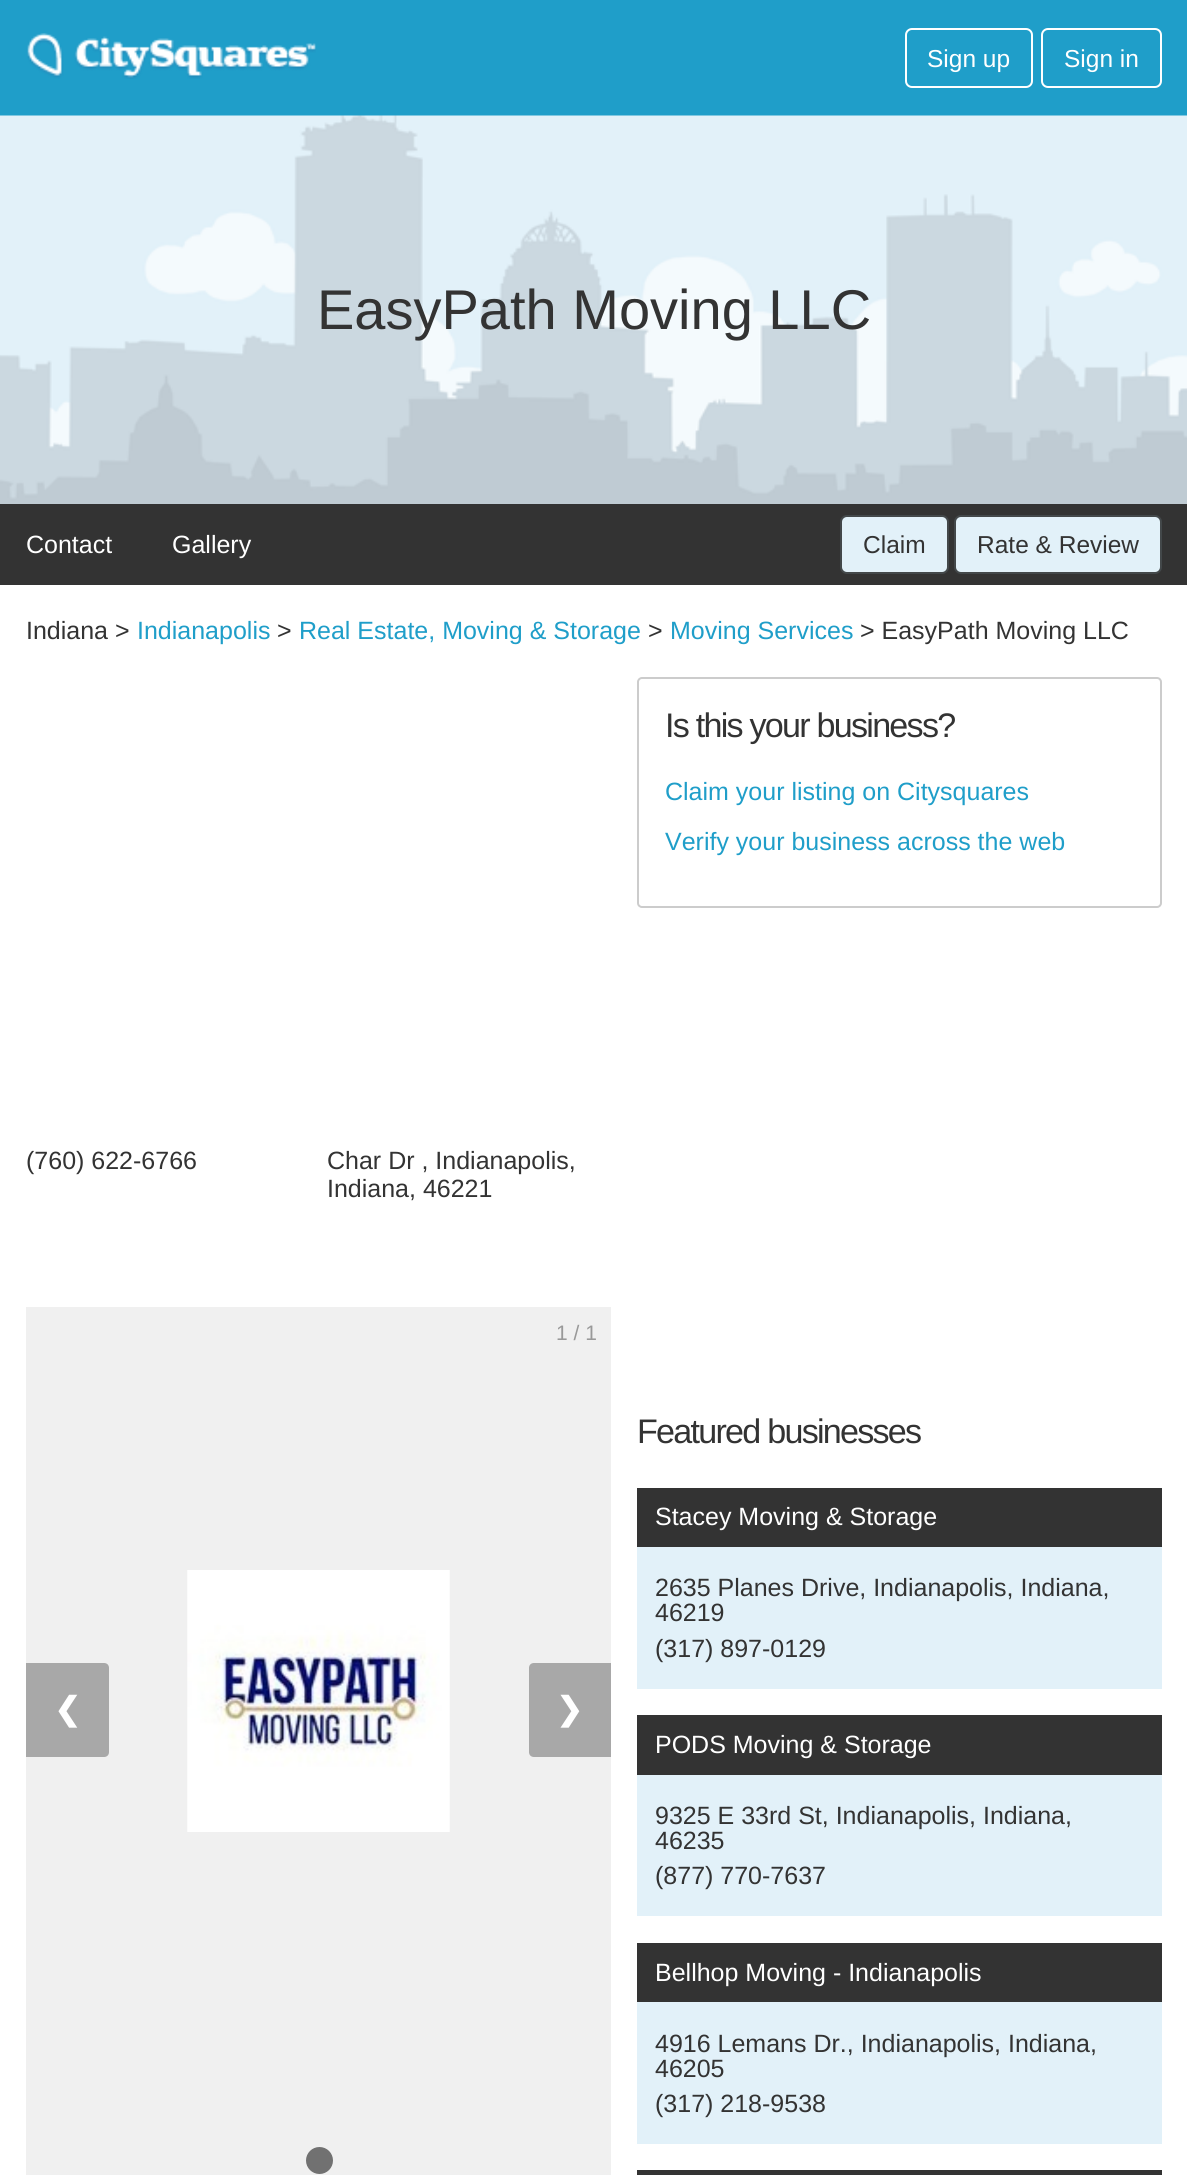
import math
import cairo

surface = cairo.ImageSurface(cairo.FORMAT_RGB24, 1187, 2175)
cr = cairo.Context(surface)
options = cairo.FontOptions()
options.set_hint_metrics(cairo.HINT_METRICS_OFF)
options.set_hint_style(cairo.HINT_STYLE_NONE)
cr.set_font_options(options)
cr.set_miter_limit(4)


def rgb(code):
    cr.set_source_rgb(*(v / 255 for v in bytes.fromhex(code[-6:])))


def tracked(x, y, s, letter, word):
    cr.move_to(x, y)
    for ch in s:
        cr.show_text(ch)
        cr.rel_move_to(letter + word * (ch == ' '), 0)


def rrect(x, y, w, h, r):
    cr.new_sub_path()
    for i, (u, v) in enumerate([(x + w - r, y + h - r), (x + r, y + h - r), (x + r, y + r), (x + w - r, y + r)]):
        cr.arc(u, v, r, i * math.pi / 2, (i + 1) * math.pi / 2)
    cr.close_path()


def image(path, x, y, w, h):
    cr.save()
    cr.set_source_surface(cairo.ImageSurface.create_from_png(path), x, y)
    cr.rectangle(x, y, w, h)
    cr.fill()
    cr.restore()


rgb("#ffffff")
cr.paint()
rgb("#1f9ec9")
cr.rectangle(0, 0, 1187, 116)
cr.fill()
image("img/1.png", 27, 33, 289, 46)
rrect(906, 29, 126, 58, 6)
rgb("#ffffff")
cr.stroke()
rrect(1042, 29, 119, 58, 6)
cr.stroke()
image("img/2.png", 0, 115, 1187, 389)
rgb("#333333")
cr.rectangle(0, 504, 1187, 81)
cr.fill()
rgb("#e2f1f9")
rrect(841, 516, 107, 57, 6)
cr.fill_preserve()
rgb("#43484a")
cr.stroke()
rgb("#e2f1f9")
rrect(955, 516, 206, 57, 6)
cr.fill_preserve()
rgb("#43484a")
cr.stroke()
rgb("#f0f0f0")
cr.rectangle(26, 1307, 585, 868)
cr.fill()
image("img/3.png", 187, 1570, 263, 262)
rgb("#a8a8a8")
cr.new_path()
cr.move_to(26, 1663)
cr.line_to(104, 1663)
cr.curve_to(107, 1663, 109, 1665, 109, 1668)
cr.line_to(109, 1752)
cr.curve_to(109, 1755, 107, 1757, 104, 1757)
cr.line_to(26, 1757)
cr.close_path()
cr.fill()
cr.new_path()
cr.move_to(534, 1663)
cr.line_to(611, 1663)
cr.line_to(611, 1757)
cr.line_to(534, 1757)
cr.curve_to(531, 1757, 529, 1755, 529, 1752)
cr.line_to(529, 1668)
cr.curve_to(529, 1665, 531, 1663, 534, 1663)
cr.close_path()
cr.fill()
rgb("#717171")
cr.arc(319.5, 2160.5, 13.5, 0, 2 * math.pi)
cr.fill()
rrect(638, 678, 523, 229, 4)
rgb("#cccccc")
cr.stroke()
for x, y, w, h, color in [
    (637, 1488, 525, 59, "#333333"),
    (637, 1547, 525, 142, "#e2f1f9"),
    (637, 1715, 525, 60, "#333333"),
    (637, 1775, 525, 141, "#e2f1f9"),
    (637, 1943, 525, 59, "#333333"),
    (637, 2002, 525, 142, "#e2f1f9"),
    (637, 2170, 525, 5, "#333333"),
]:
    rgb(color)
    cr.rectangle(x, y, w, h)
    cr.fill()
cr.select_font_face("Liberation Sans")
cr.set_font_size(24.5)
rgb("#ffffff")
cr.move_to(927, 67)
cr.show_text("Sign up")
cr.move_to(1064, 67)
cr.show_text("Sign in")
cr.set_font_size(56)
rgb("#333333")
cr.move_to(317, 329)
cr.show_text("EasyPath Moving LLC")
cr.set_font_size(25)
rgb("#ffffff")
cr.move_to(26, 553)
cr.show_text("Contact")
cr.move_to(172, 553)
cr.show_text("Gallery")
cr.set_font_size(24.5)
rgb("#333333")
cr.move_to(863, 553)
cr.show_text("Claim")
cr.move_to(977, 553)
cr.show_text("Rate & Review")
cr.set_font_size(25)
cr.move_to(26, 639)
cr.show_text("Indiana >")
rgb("#1f9ec9")
cr.move_to(137, 639)
cr.show_text("Indianapolis")
rgb("#333333")
cr.move_to(277, 639)
cr.show_text(">")
rgb("#1f9ec9")
cr.move_to(299, 639)
cr.show_text("Real Estate, Moving & Storage")
rgb("#333333")
cr.move_to(648, 639)
cr.show_text(">")
rgb("#1f9ec9")
cr.move_to(670, 639)
cr.show_text("Moving Services")
rgb("#333333")
for x, y, s in [
    (860, 639, "> EasyPath Moving LLC"),
    (26, 1169, "(760) 622-6766"),
    (327, 1169, "Char Dr , Indianapolis,"),
    (327, 1197, "Indiana, 46221"),
]:
    cr.move_to(x, y)
    cr.show_text(s)
cr.set_font_size(21)
rgb("#999999")
cr.move_to(556, 1340)
cr.show_text("1 / 1")
cr.select_font_face("DejaVu Sans", cairo.FONT_SLANT_NORMAL, cairo.FONT_WEIGHT_BOLD)
cr.set_font_size(32)
rgb("#ffffff")
cr.move_to(54, 1720)
cr.show_text("❮")
cr.move_to(556, 1720)
cr.show_text("❯")
cr.select_font_face("Liberation Sans")
cr.set_font_size(34.1)
rgb("#333333")
tracked(665, 737, "Is this your business?", -1.75, 0)
cr.set_font_size(25)
rgb("#1f9ec9")
cr.move_to(665, 800)
cr.show_text("Claim your listing on Citysquares")
cr.move_to(665, 850)
cr.show_text("Verify your business across the web")
cr.set_font_size(34.1)
rgb("#333333")
tracked(637, 1443, "Featured businesses", -1.75, 0)
cr.set_font_size(25)
rgb("#ffffff")
cr.move_to(655, 1525)
cr.show_text("Stacey Moving & Storage")
rgb("#333333")
for x, y, s in [
    (655, 1596, "2635 Planes Drive, Indianapolis, Indiana,"),
    (655, 1621, "46219"),
    (655, 1657, "(317) 897-0129"),
]:
    cr.move_to(x, y)
    cr.show_text(s)
rgb("#ffffff")
cr.move_to(655, 1753)
cr.show_text("PODS Moving & Storage")
rgb("#333333")
for x, y, s in [
    (655, 1824, "9325 E 33rd St, Indianapolis, Indiana,"),
    (655, 1849, "46235"),
    (655, 1884, "(877) 770-7637"),
]:
    cr.move_to(x, y)
    cr.show_text(s)
rgb("#ffffff")
cr.move_to(655, 1981)
cr.show_text("Bellhop Moving - Indianapolis")
rgb("#333333")
for x, y, s in [
    (655, 2052, "4916 Lemans Dr., Indianapolis, Indiana,"),
    (655, 2077, "46205"),
    (655, 2112, "(317) 218-9538"),
]:
    cr.move_to(x, y)
    cr.show_text(s)
surface.write_to_png("page.png")
